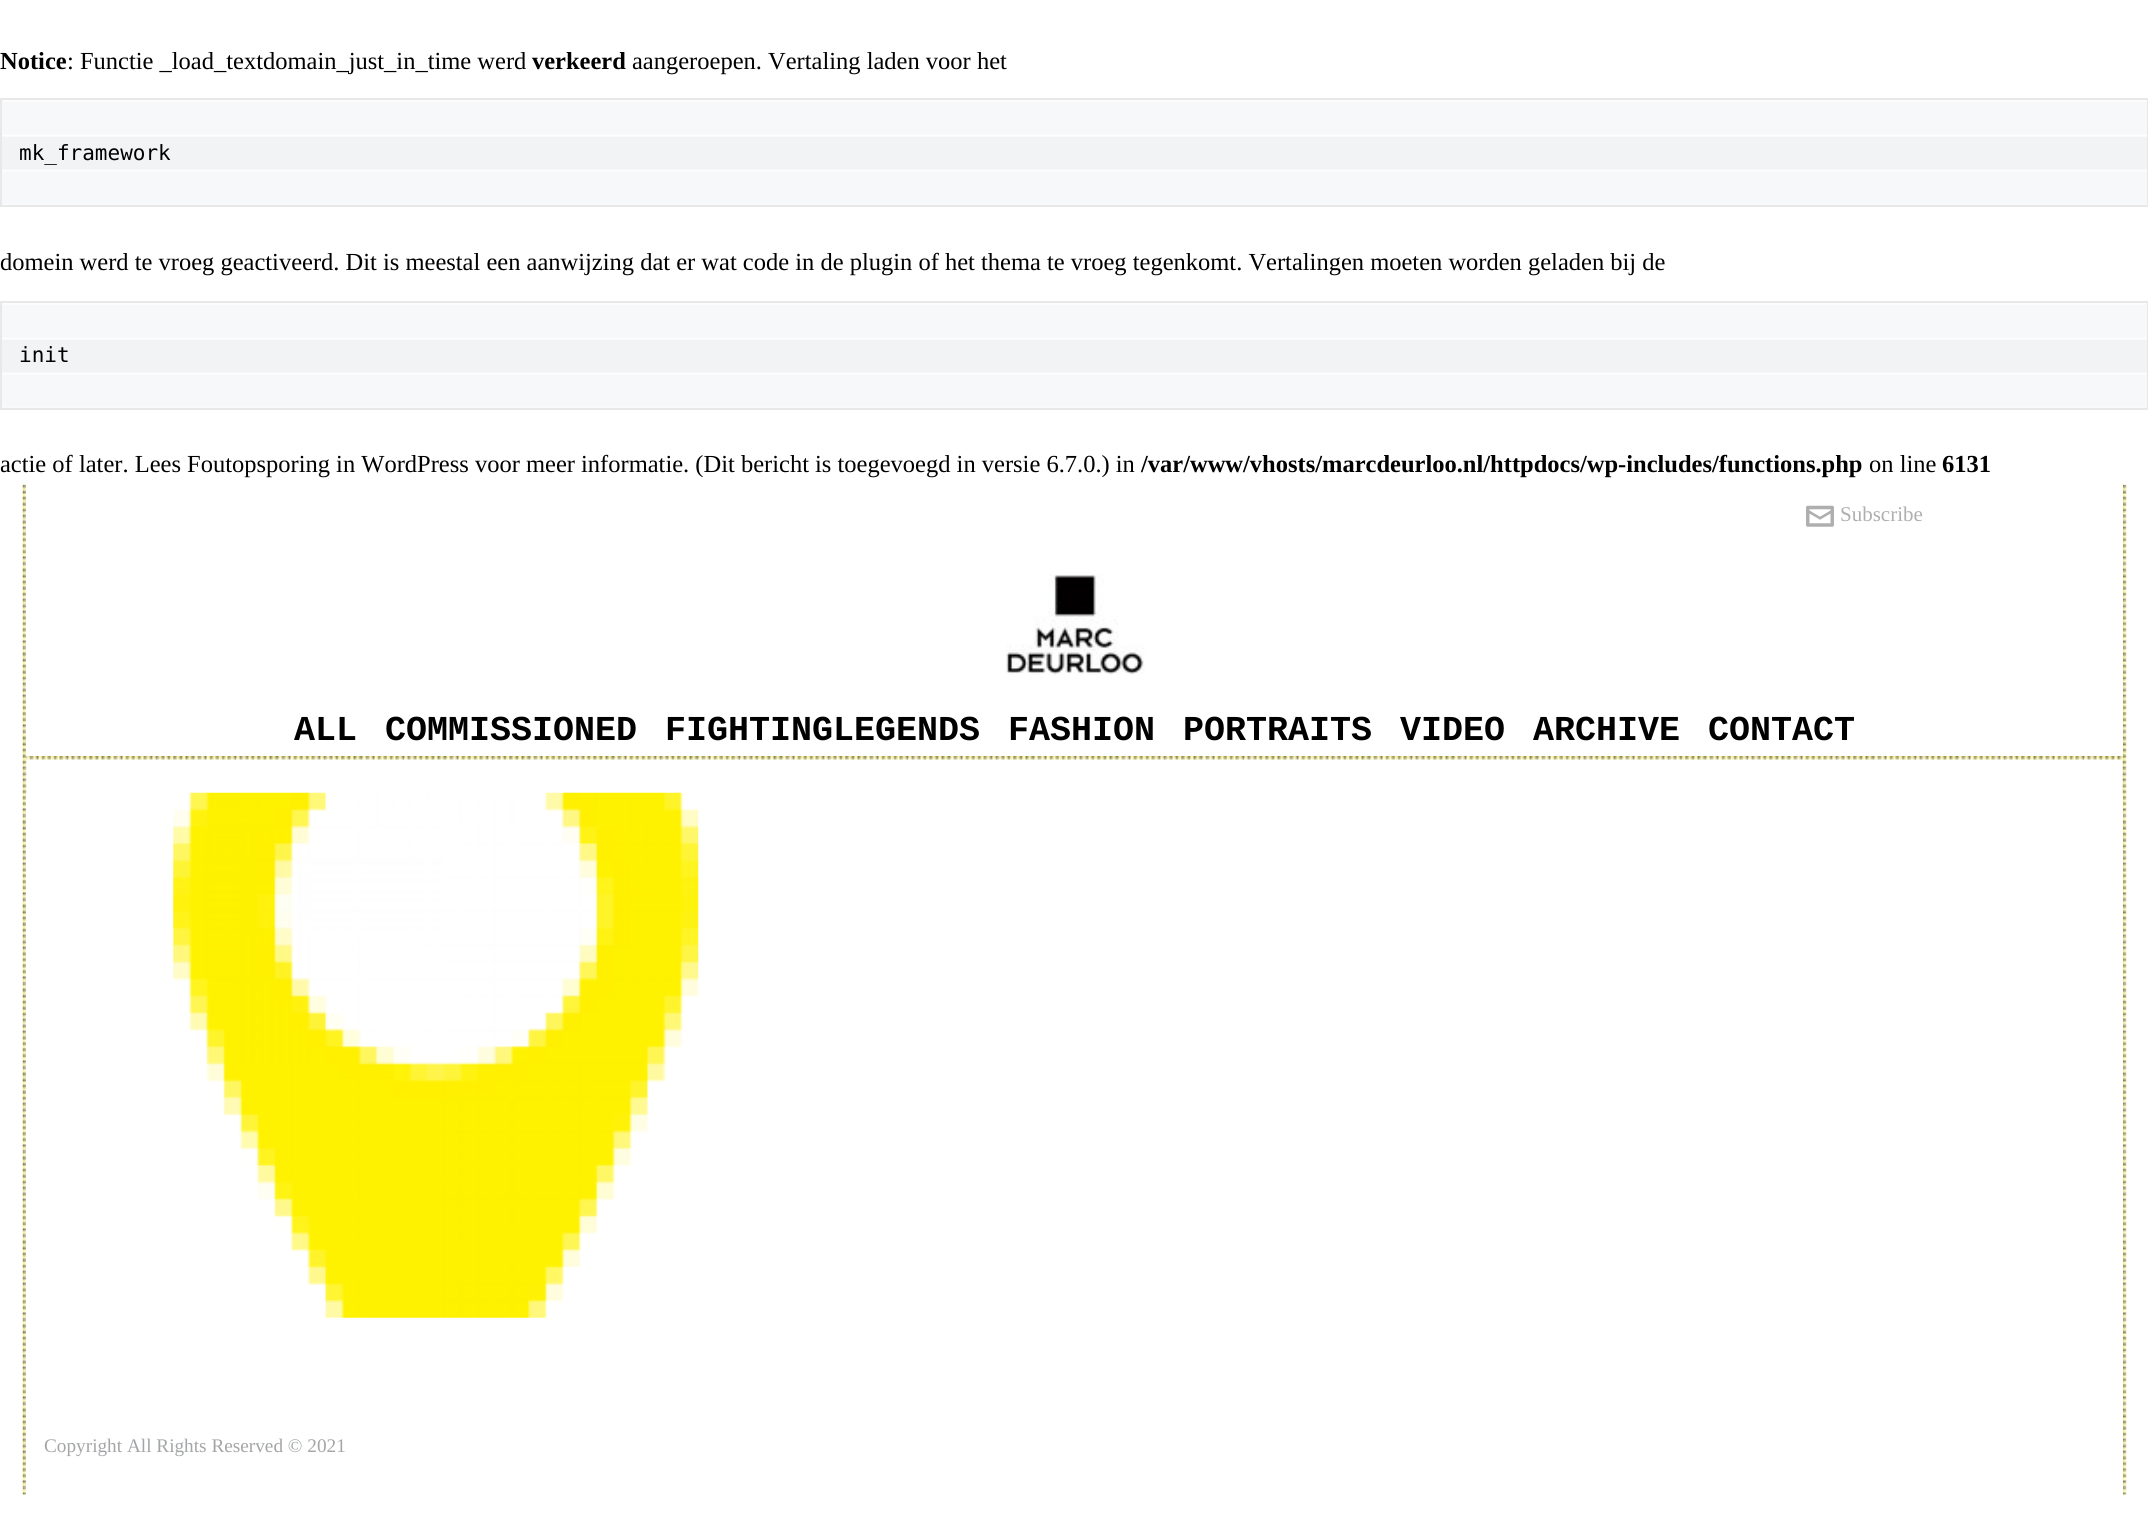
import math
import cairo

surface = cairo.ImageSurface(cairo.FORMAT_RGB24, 2148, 1531)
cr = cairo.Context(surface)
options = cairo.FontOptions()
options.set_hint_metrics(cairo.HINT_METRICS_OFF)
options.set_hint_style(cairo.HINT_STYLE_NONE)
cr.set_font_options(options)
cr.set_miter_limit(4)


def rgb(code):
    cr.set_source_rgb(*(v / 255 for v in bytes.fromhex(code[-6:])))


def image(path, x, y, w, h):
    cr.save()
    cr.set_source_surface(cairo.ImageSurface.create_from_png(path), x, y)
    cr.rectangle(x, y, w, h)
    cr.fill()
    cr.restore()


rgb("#ffffff")
cr.paint()
rgb("#f2f3f5")
cr.rectangle(2, 100, 2145, 71)
cr.fill()
image("img/1.png", 2, 100, 2145, 105)
cr.rectangle(1, 99, 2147, 107)
rgb("#e8e8e8")
cr.stroke()
rgb("#f2f3f5")
cr.rectangle(2, 303, 2145, 71)
cr.fill()
image("img/1.png", 2, 303, 2145, 105)
cr.rectangle(1, 302, 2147, 107)
rgb("#e8e8e8")
cr.stroke()
image("img/2.png", 22, 484, 5, 1011)
image("img/6.png", 2122, 484, 5, 1011)
rgb("#ffffff")
cr.rectangle(26, 485, 2097, 275)
cr.fill()
image("img/3.png", 1806, 505, 28, 22)
image("img/4.png", 1006, 574, 139, 101)
image("img/5.png", 26, 756, 2097, 4)
cr.rectangle(26, 793, 2097, 702)
cr.fill()
image("img/7.png", 173, 792, 526, 526)
cr.select_font_face("Liberation Serif", cairo.FONT_SLANT_NORMAL, cairo.FONT_WEIGHT_BOLD)
cr.set_font_size(24.5)
rgb("#000000")
cr.move_to(0, 69)
cr.show_text("Notice")
cr.select_font_face("Liberation Serif")
cr.move_to(67, 69)
cr.show_text(": Functie _load_textdomain_just_in_time werd")
cr.select_font_face("Liberation Serif", cairo.FONT_SLANT_NORMAL, cairo.FONT_WEIGHT_BOLD)
cr.move_to(532, 69)
cr.show_text("verkeerd")
cr.select_font_face("Liberation Serif")
cr.move_to(632, 69)
cr.show_text("aangeroepen. Vertaling laden voor het")
cr.select_font_face("DejaVu Sans Mono")
cr.set_font_size(21)
cr.move_to(19, 160)
cr.show_text("mk_framework")
cr.select_font_face("Liberation Serif")
cr.set_font_size(24.5)
cr.move_to(0, 270)
cr.show_text("domein werd te vroeg geactiveerd. Dit is meestal een aanwijzing dat er wat code in de plugin of het thema te vroeg tegenkomt. Vertalingen moeten worden geladen bij de")
cr.select_font_face("DejaVu Sans Mono")
cr.set_font_size(21)
cr.move_to(19, 362)
cr.show_text("init")
cr.select_font_face("Liberation Serif")
cr.set_font_size(24.5)
cr.move_to(0, 472)
cr.show_text("actie of later. Lees Foutopsporing in WordPress voor meer informatie. (Dit bericht is toegevoegd in versie 6.7.0.) in")
cr.select_font_face("Liberation Serif", cairo.FONT_SLANT_NORMAL, cairo.FONT_WEIGHT_BOLD)
cr.move_to(1141, 472)
cr.show_text("/var/www/vhosts/marcdeurloo.nl/httpdocs/wp-includes/functions.php")
cr.select_font_face("Liberation Serif")
cr.move_to(1869, 472)
cr.show_text("on line")
cr.select_font_face("Liberation Serif", cairo.FONT_SLANT_NORMAL, cairo.FONT_WEIGHT_BOLD)
cr.move_to(1942, 472)
cr.show_text("6131")
cr.select_font_face("Liberation Serif")
cr.set_font_size(21)
rgb("#afafaf")
cr.move_to(1840, 521)
cr.show_text("Subscribe")
cr.select_font_face("Liberation Mono", cairo.FONT_SLANT_NORMAL, cairo.FONT_WEIGHT_BOLD)
cr.set_font_size(35)
rgb("#000000")
for x, y, s in [
    (294, 740, "ALL"),
    (385, 740, "COMMISSIONED"),
    (665, 740, "FIGHTINGLEGENDS"),
    (1008, 740, "FASHION"),
    (1183, 740, "PORTRAITS"),
    (1400, 740, "VIDEO"),
    (1533, 740, "ARCHIVE"),
    (1708, 740, "CONTACT"),
]:
    cr.move_to(x, y)
    cr.show_text(s)
cr.select_font_face("Liberation Serif")
cr.set_font_size(19.25)
rgb("#a3a5a7")
cr.move_to(44, 1452)
cr.show_text("Copyright All Rights Reserved © 2021")
surface.write_to_png("page.png")
